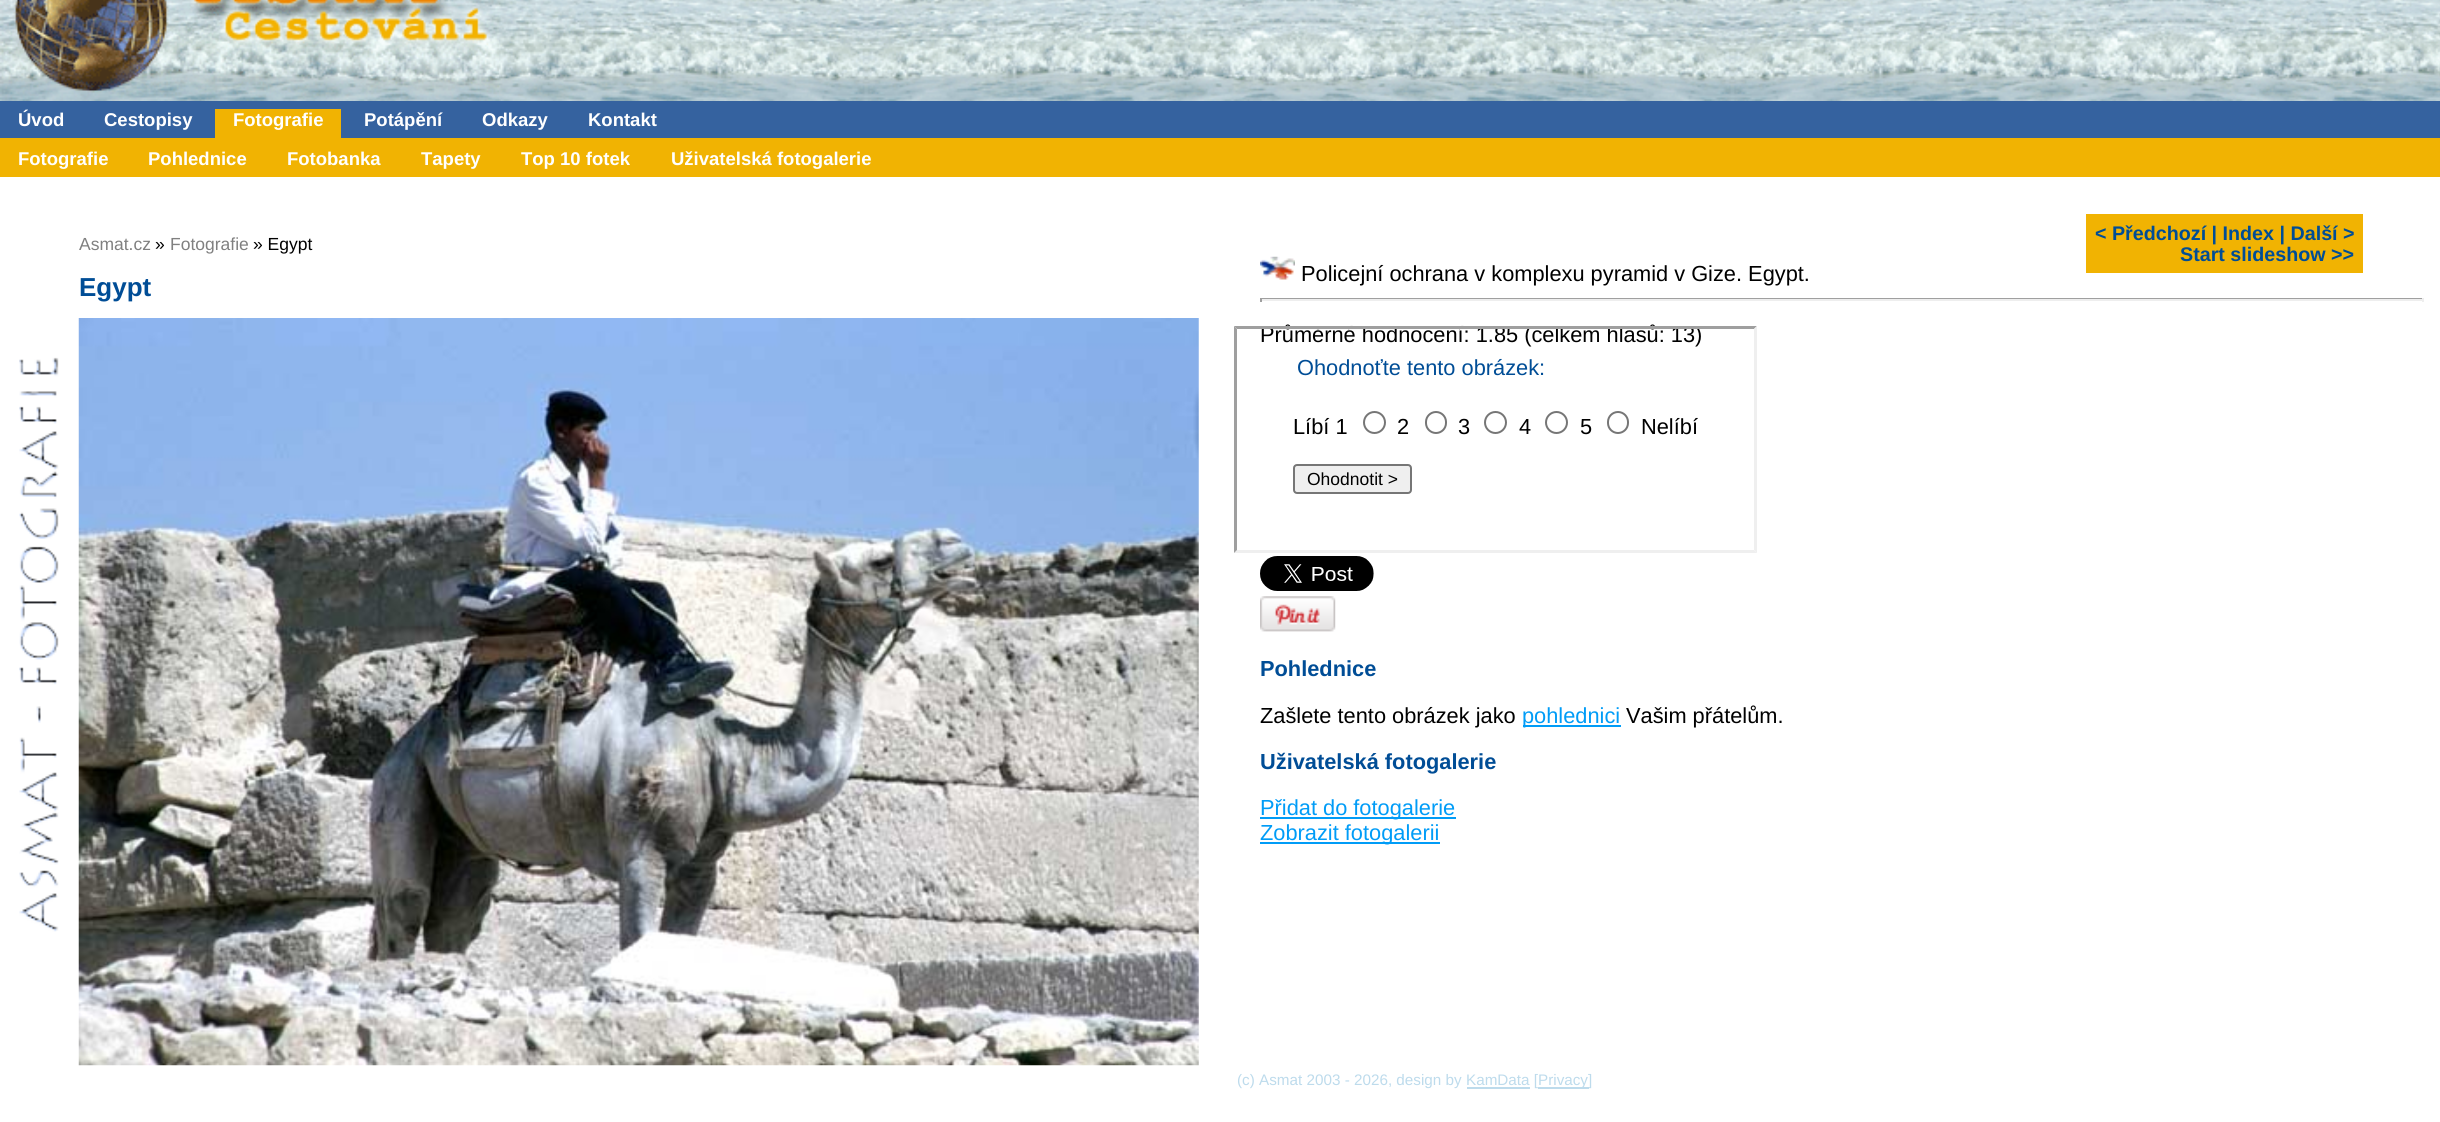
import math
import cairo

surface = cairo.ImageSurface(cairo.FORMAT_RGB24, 2440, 1122)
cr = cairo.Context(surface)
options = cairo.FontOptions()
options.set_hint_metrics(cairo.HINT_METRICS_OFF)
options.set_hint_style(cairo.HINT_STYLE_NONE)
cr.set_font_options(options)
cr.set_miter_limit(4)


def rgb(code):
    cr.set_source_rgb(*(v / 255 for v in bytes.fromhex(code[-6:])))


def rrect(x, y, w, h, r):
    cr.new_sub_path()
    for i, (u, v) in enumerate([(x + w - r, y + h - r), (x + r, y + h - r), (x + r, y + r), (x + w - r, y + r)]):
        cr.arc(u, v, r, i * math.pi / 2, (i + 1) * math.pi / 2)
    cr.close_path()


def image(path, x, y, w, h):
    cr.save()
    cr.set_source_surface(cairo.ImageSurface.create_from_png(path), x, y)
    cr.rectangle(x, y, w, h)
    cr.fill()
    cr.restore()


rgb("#ffffff")
cr.paint()
rgb("#35629f")
cr.rectangle(0, 101, 2440, 37)
cr.fill()
image("img/1.png", 498, 0, 1942, 101)
image("img/2.png", 0, 0, 499, 101)
rgb("#f1b302")
cr.rectangle(215, 109, 126, 29)
cr.fill()
cr.rectangle(0, 138, 2440, 39)
cr.fill()
image("img/3.png", 19, 357, 40, 575)
image("img/4.png", 78, 318, 1121, 748)
image("img/5.png", 1260, 256, 35, 24)
for x, y, w, h, color in [
    (1260, 298, 1164, 1, "#9f9f9f"),
    (2422, 298, 2, 4, "#eeeeee"),
    (1260, 299, 1164, 2, "#eeeeee"),
    (1260, 298, 2, 4, "#9f9f9f"),
]:
    rgb(color)
    cr.rectangle(x, y, w, h)
    cr.fill()
cr.arc(1374.5, 422.5, 10.5, 0, 2 * math.pi)
rgb("#767676")
cr.stroke()
rrect(1426, 412, 20, 21, 10)
cr.stroke()
cr.arc(1495.5, 422.5, 10.5, 0, 2 * math.pi)
cr.stroke()
cr.arc(1556.5, 422.5, 10.5, 0, 2 * math.pi)
cr.stroke()
rrect(1608, 412, 20, 21, 10)
cr.stroke()
rgb("#efefef")
rrect(1294, 465, 117, 28, 3)
cr.fill_preserve()
rgb("#767676")
cr.stroke()
image("img/6.png", 1260, 556, 114, 35)
image("img/7.png", 1260, 596, 76, 36)
for x, y, w, h, color in [
    (1523, 725, 98, 2, "#009cf7"),
    (1260, 817, 196, 2, "#009cf7"),
    (1260, 842, 180, 2, "#009cf7"),
    (2086, 214, 277, 59, "#f1b302"),
    (1467, 1087, 63, 2, "#bddbec"),
    (1538, 1087, 51, 2, "#bddbec"),
]:
    rgb(color)
    cr.rectangle(x, y, w, h)
    cr.fill()
cr.select_font_face("Liberation Sans", cairo.FONT_SLANT_NORMAL, cairo.FONT_WEIGHT_BOLD)
cr.set_font_size(18.5)
rgb("#ffffff")
for x, y, s in [
    (18, 126, "Úvod"),
    (104, 126, "Cestopisy"),
    (233, 126, "Fotografie"),
    (364, 126, "Potápění"),
    (482, 126, "Odkazy"),
    (588, 126, "Kontakt"),
    (18, 165, "Fotografie"),
    (148, 165, "Pohlednice"),
    (287, 165, "Fotobanka"),
    (421, 165, "Tapety"),
    (521, 165, "Top 10 fotek"),
    (671, 165, "Uživatelská fotogalerie"),
]:
    cr.move_to(x, y)
    cr.show_text(s)
cr.select_font_face("Liberation Sans")
cr.set_font_size(17.5)
rgb("#808080")
cr.move_to(79, 250)
cr.show_text("Asmat.cz")
rgb("#000000")
cr.move_to(155, 250)
cr.show_text("»")
rgb("#808080")
cr.move_to(170, 250)
cr.show_text("Fotografie")
rgb("#000000")
cr.move_to(253, 250)
cr.show_text("» Egypt")
cr.select_font_face("Liberation Sans", cairo.FONT_SLANT_NORMAL, cairo.FONT_WEIGHT_BOLD)
cr.set_font_size(26)
rgb("#004d96")
cr.move_to(79, 296)
cr.show_text("Egypt")
cr.select_font_face("Liberation Sans")
cr.set_font_size(21.8)
rgb("#000000")
cr.move_to(1301, 281)
cr.show_text("Policejní ochrana v komplexu pyramid v Gize. Egypt.")
cr.move_to(1260, 342)
cr.show_text("Průměrné hodnocení: 1.85 (celkem hlasů: 13)")
rgb("#9f9f9f")
cr.new_path()
cr.move_to(1234, 326)
cr.line_to(1757, 326)
cr.line_to(1754, 329)
cr.line_to(1237, 329)
cr.close_path()
cr.fill()
rgb("#efefef")
cr.new_path()
cr.move_to(1757, 326)
cr.line_to(1757, 553)
cr.line_to(1754, 550)
cr.line_to(1754, 329)
cr.close_path()
cr.fill()
cr.new_path()
cr.move_to(1757, 553)
cr.line_to(1234, 553)
cr.line_to(1237, 550)
cr.line_to(1754, 550)
cr.close_path()
cr.fill()
rgb("#9f9f9f")
cr.new_path()
cr.move_to(1234, 553)
cr.line_to(1234, 326)
cr.line_to(1237, 329)
cr.line_to(1237, 550)
cr.close_path()
cr.fill()
rgb("#004d96")
cr.move_to(1297, 375)
cr.show_text("Ohodnoťte tento obrázek:")
rgb("#000000")
for x, y, s in [
    (1293, 434, "Líbí 1"),
    (1397, 434, "2"),
    (1458, 434, "3"),
    (1519, 434, "4"),
    (1580, 434, "5"),
    (1641, 434, "Nelíbí"),
]:
    cr.move_to(x, y)
    cr.show_text(s)
cr.set_font_size(17.5)
cr.move_to(1307, 485)
cr.show_text("Ohodnotit >")
cr.select_font_face("Liberation Sans", cairo.FONT_SLANT_NORMAL, cairo.FONT_WEIGHT_BOLD)
cr.set_font_size(21.8)
rgb("#004d96")
cr.move_to(1260, 676)
cr.show_text("Pohlednice")
cr.select_font_face("Liberation Sans")
rgb("#000000")
cr.move_to(1260, 723)
cr.show_text("Zašlete tento obrázek jako")
rgb("#009cf7")
cr.move_to(1522, 723)
cr.show_text("pohlednici")
rgb("#000000")
cr.move_to(1626, 723)
cr.show_text("Vašim přátelům.")
cr.select_font_face("Liberation Sans", cairo.FONT_SLANT_NORMAL, cairo.FONT_WEIGHT_BOLD)
rgb("#004d96")
cr.move_to(1260, 769)
cr.show_text("Uživatelská fotogalerie")
cr.select_font_face("Liberation Sans")
rgb("#009cf7")
cr.move_to(1260, 815)
cr.show_text("Přidat do fotogalerie")
cr.move_to(1260, 840)
cr.show_text("Zobrazit fotogalerii")
cr.select_font_face("Liberation Sans", cairo.FONT_SLANT_NORMAL, cairo.FONT_WEIGHT_BOLD)
cr.set_font_size(19.7)
rgb("#004d96")
cr.move_to(2095, 240)
cr.show_text("< Předchozí | Index | Další >")
cr.move_to(2180, 261)
cr.show_text("Start slideshow >>")
cr.select_font_face("Liberation Sans")
cr.set_font_size(15.25)
rgb("#bddbec")
for x, y, s in [
    (1237, 1085, "(c) Asmat 2003 - 2026, design by"),
    (1466, 1085, "KamData ["),
    (1538, 1085, "Privacy]"),
]:
    cr.move_to(x, y)
    cr.show_text(s)
surface.write_to_png("page.png")
